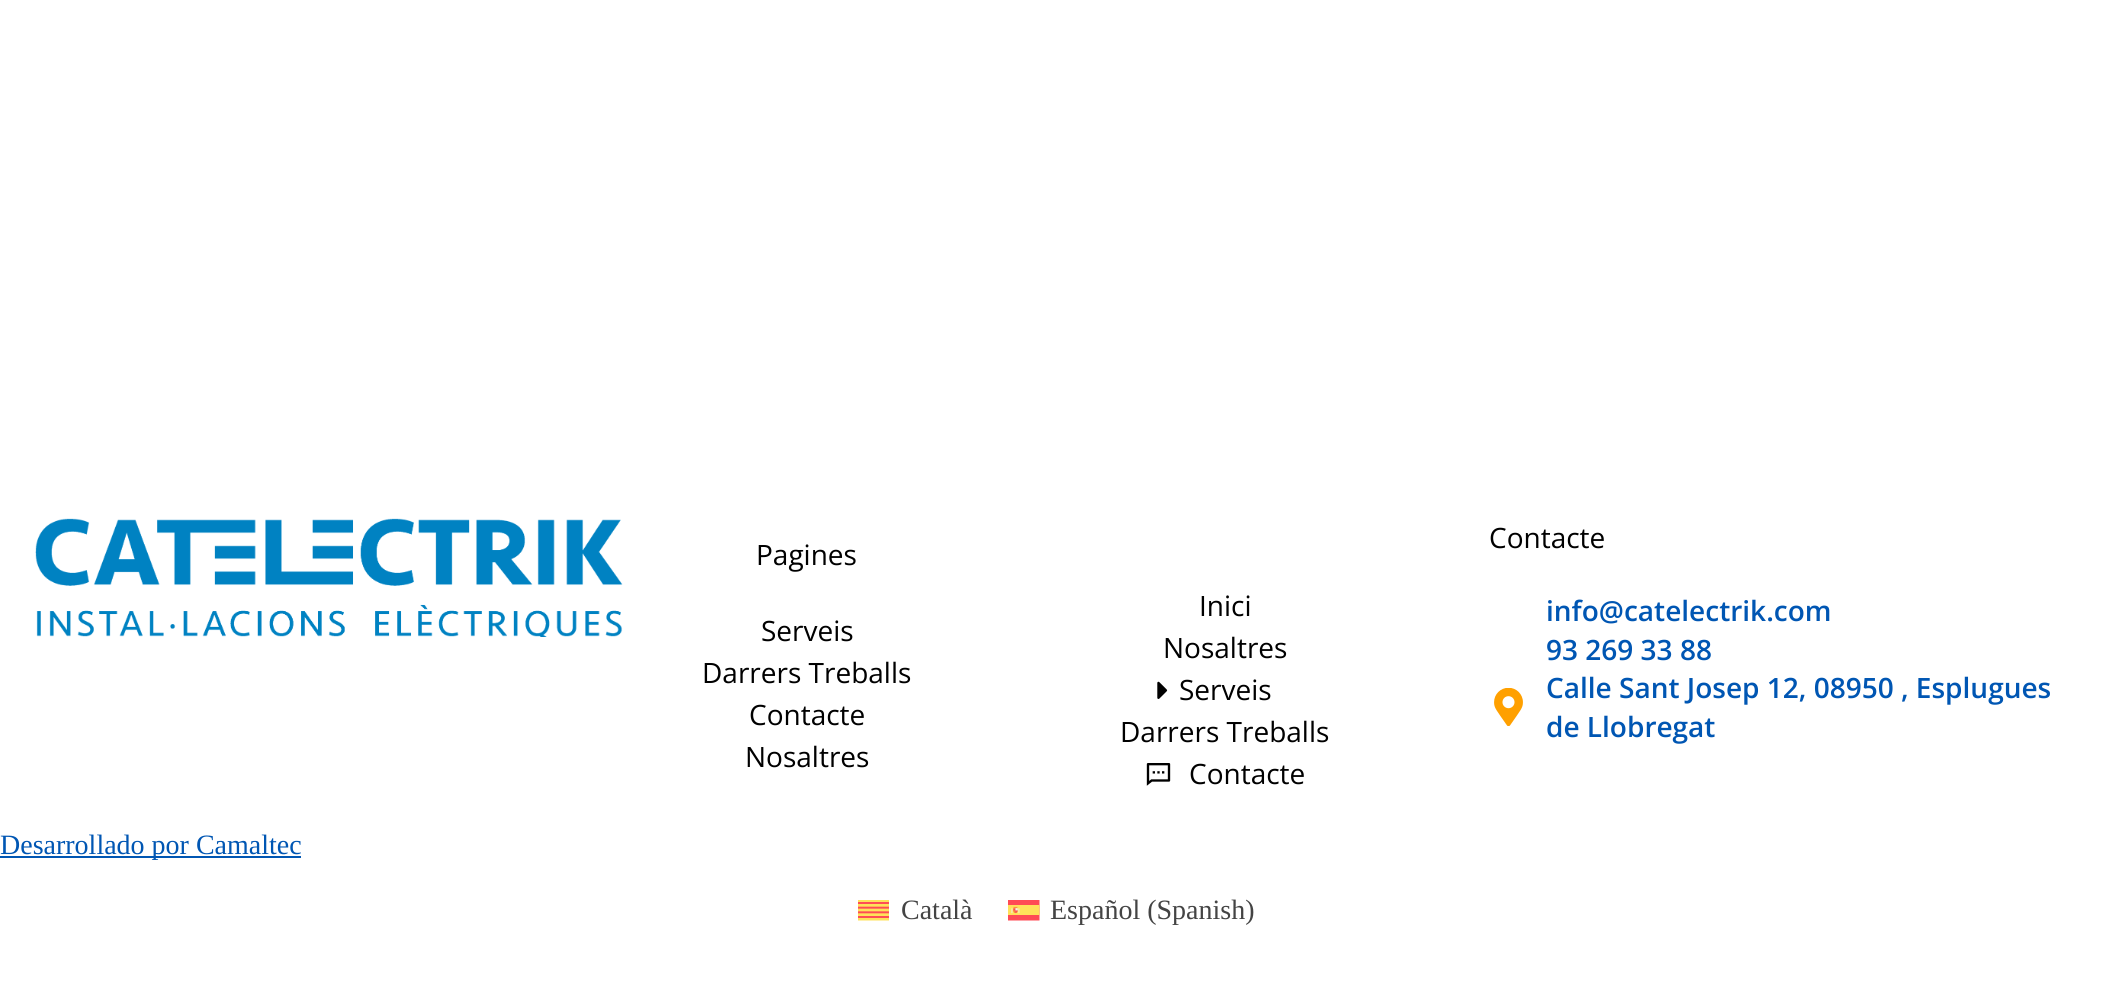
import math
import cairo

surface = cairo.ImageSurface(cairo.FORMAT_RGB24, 2112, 1001)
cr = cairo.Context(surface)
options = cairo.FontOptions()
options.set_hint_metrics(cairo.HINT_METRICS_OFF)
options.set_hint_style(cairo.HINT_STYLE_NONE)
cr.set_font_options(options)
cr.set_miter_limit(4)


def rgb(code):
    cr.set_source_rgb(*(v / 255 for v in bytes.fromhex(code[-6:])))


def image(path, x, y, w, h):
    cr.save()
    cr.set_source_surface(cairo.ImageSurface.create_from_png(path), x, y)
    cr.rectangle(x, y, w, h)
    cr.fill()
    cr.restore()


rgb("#ffffff")
cr.paint()
image("img/1.png", 35, 518, 588, 119)
image("img/2.png", 1157, 681, 11, 18)
image("img/3.png", 1146, 763, 25, 23)
image("img/4.png", 1494, 688, 29, 38)
rgb("#0056b3")
cr.rectangle(0, 856, 301, 2)
cr.fill()
image("img/5.png", 858, 900, 31, 21)
image("img/6.png", 1008, 900, 32, 21)
cr.select_font_face("Open Sans")
cr.set_font_size(28)
rgb("#000000")
for x, y, s in [
    (756, 565, "Pagines"),
    (761, 641, "Serveis"),
    (702, 683, "Darrers Treballs"),
    (749, 725, "Contacte"),
    (745, 767, "Nosaltres"),
    (1199, 616, "Inici"),
    (1163, 658, "Nosaltres"),
    (1179, 700, "Serveis"),
    (1120, 742, "Darrers Treballs"),
    (1189, 784, "Contacte"),
    (1489, 548, "Contacte"),
]:
    cr.move_to(x, y)
    cr.show_text(s)
cr.select_font_face("Open Sans SemiBold")
rgb("#0056b3")
for x, y, s in [
    (1546, 621, "info@catelectrik.com"),
    (1546, 660, "93 269 33 88"),
    (1546, 698, "Calle Sant Josep 12, 08950 , Esplugues"),
    (1546, 737, "de Llobregat"),
]:
    cr.move_to(x, y)
    cr.show_text(s)
cr.select_font_face("Liberation Serif")
cr.move_to(0, 854)
cr.show_text("Desarrollado por Camaltec")
rgb("#444444")
cr.move_to(901, 919)
cr.show_text("Català")
cr.move_to(1050, 919)
cr.show_text("Español (Spanish)")
surface.write_to_png("page.png")
